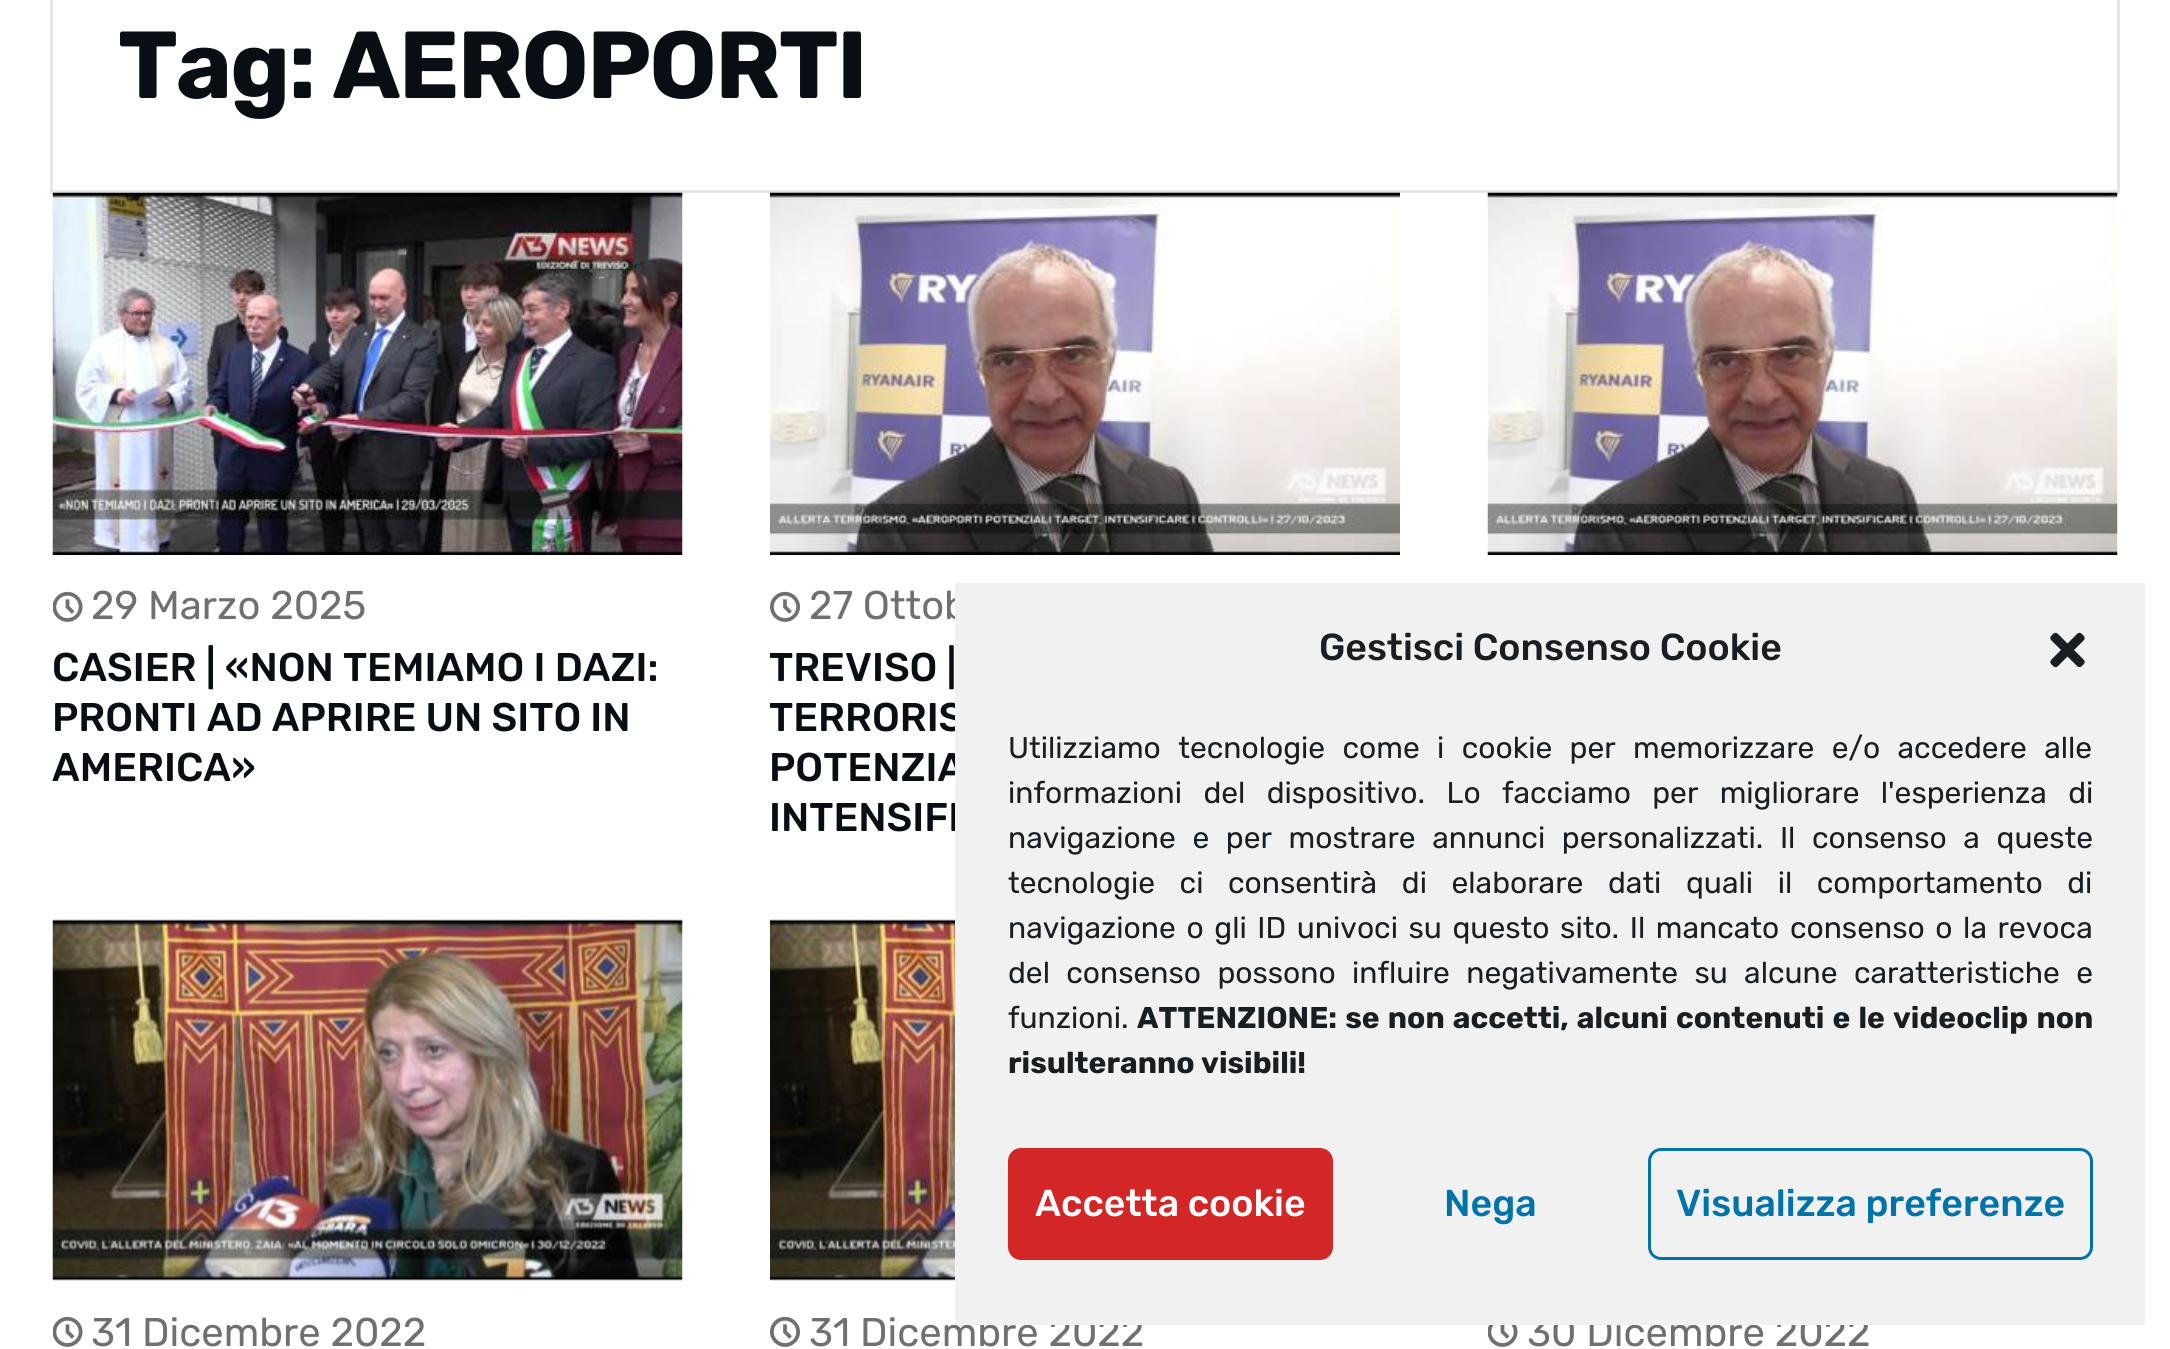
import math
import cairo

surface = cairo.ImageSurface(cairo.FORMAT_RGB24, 2170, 1349)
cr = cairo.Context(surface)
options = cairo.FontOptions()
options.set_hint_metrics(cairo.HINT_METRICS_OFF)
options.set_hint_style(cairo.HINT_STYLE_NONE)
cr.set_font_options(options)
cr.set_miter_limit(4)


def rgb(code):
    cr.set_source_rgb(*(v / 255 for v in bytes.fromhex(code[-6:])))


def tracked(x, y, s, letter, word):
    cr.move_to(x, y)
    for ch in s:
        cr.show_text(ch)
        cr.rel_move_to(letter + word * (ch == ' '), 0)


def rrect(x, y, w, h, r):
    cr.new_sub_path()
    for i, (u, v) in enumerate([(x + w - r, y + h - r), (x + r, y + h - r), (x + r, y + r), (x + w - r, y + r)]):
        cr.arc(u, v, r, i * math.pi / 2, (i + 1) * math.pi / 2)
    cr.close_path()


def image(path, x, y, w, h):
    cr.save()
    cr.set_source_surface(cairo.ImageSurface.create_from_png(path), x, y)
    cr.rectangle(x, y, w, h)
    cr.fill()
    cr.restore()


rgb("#ffffff")
cr.paint()
cr.rectangle(51.5, -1.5, 2067, 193)
rgb("#e6e6e6")
cr.set_line_width(3)
cr.stroke()
image("img/1.png", 1487, 192, 631, 363)
image("img/2.png", 52, 192, 631, 363)
image("img/3.png", 53, 591, 30, 31)
image("img/4.png", 770, 192, 630, 363)
image("img/5.png", 770, 591, 30, 31)
image("img/6.png", 52, 919, 631, 362)
image("img/3.png", 53, 1316, 30, 31)
image("img/7.png", 770, 919, 185, 362)
image("img/5.png", 770, 1316, 30, 31)
image("img/8.png", 1488, 1325, 30, 22)
cr.select_font_face("Rubik", cairo.FONT_SLANT_NORMAL, cairo.FONT_WEIGHT_BOLD)
cr.set_font_size(95)
rgb("#080e14")
tracked(118, 98, "Tag: AEROPORTI", -1.9, 0)
cr.select_font_face("Rubik")
cr.set_font_size(40)
rgb("#707070")
cr.move_to(91, 619)
cr.show_text("29 Marzo 2025")
cr.select_font_face("Rubik Medium")
rgb("#080e14")
for x, y, s in [
    (52, 681, "CASIER | «NON TEMIAMO I DAZI:"),
    (52, 731, "PRONTI AD APRIRE UN SITO IN"),
    (52, 781, "AMERICA»"),
]:
    cr.move_to(x, y)
    cr.show_text(s)
cr.select_font_face("Rubik")
rgb("#707070")
cr.move_to(809, 619)
cr.show_text("27 Ottob")
cr.select_font_face("Rubik Medium")
rgb("#080e14")
for x, y, s in [
    (769, 681, "TREVISO |"),
    (769, 731, "TERRORIS"),
    (769, 781, "POTENZIA"),
    (769, 831, "INTENSIFI"),
]:
    cr.move_to(x, y)
    cr.show_text(s)
cr.select_font_face("Rubik")
rgb("#707070")
for x, y, s in [
    (91, 1346, "31 Dicembre 2022"),
    (809, 1346, "31 Dicembre 2022"),
    (1527, 1346, "30 Dicembre 2022"),
]:
    cr.move_to(x, y)
    cr.show_text(s)
rgb("#f1f1f1")
cr.rectangle(955, 583, 1190, 742)
cr.fill()
cr.select_font_face("Rubik Medium")
cr.set_font_size(37.5)
rgb("#191e23")
cr.move_to(1319, 660)
cr.show_text("Gestisci Consenso Cookie")
image("img/9.png", 2050, 632, 35, 36)
cr.select_font_face("Rubik")
cr.set_font_size(30)
tracked(1008, 758, "Utilizziamo tecnologie come i cookie per memorizzare e/o accedere alle", 0, 10)
tracked(1008, 803, "informazioni del dispositivo. Lo facciamo per migliorare l'esperienza di", 0, 14)
tracked(1008, 848, "navigazione e per mostrare annunci personalizzati. Il consenso a queste", 0, 9.25)
tracked(1008, 893, "tecnologie ci consentirà di elaborare dati quali il comportamento di", 0, 17.25)
tracked(1008, 938, "navigazione o gli ID univoci su questo sito. Il mancato consenso o la revoca", 0, 3.25)
tracked(1008, 983, "del consenso possono influire negativamente su alcune caratteristiche e", 0, 9)
cr.move_to(1008, 1028)
cr.show_text("funzioni.")
cr.select_font_face("Rubik", cairo.FONT_SLANT_NORMAL, cairo.FONT_WEIGHT_BOLD)
tracked(1137, 1028, "ATTENZIONE: se non accetti, alcuni contenuti e le videoclip non", 0, 1.75)
cr.move_to(1008, 1073)
cr.show_text("risulteranno visibili!")
rgb("#d22627")
rrect(1009.5, 1149.5, 322, 109, 11.5)
cr.fill_preserve()
cr.stroke()
cr.select_font_face("Rubik Medium")
cr.set_font_size(37.5)
rgb("#ffffff")
cr.move_to(1035, 1216)
cr.show_text("Accetta cookie")
rgb("#0073aa")
cr.move_to(1444, 1216)
cr.show_text("Nega")
rrect(1649.5, 1149.5, 442, 109, 11.5)
cr.stroke()
cr.move_to(1676, 1216)
cr.show_text("Visualizza preferenze")
surface.write_to_png("page.png")
